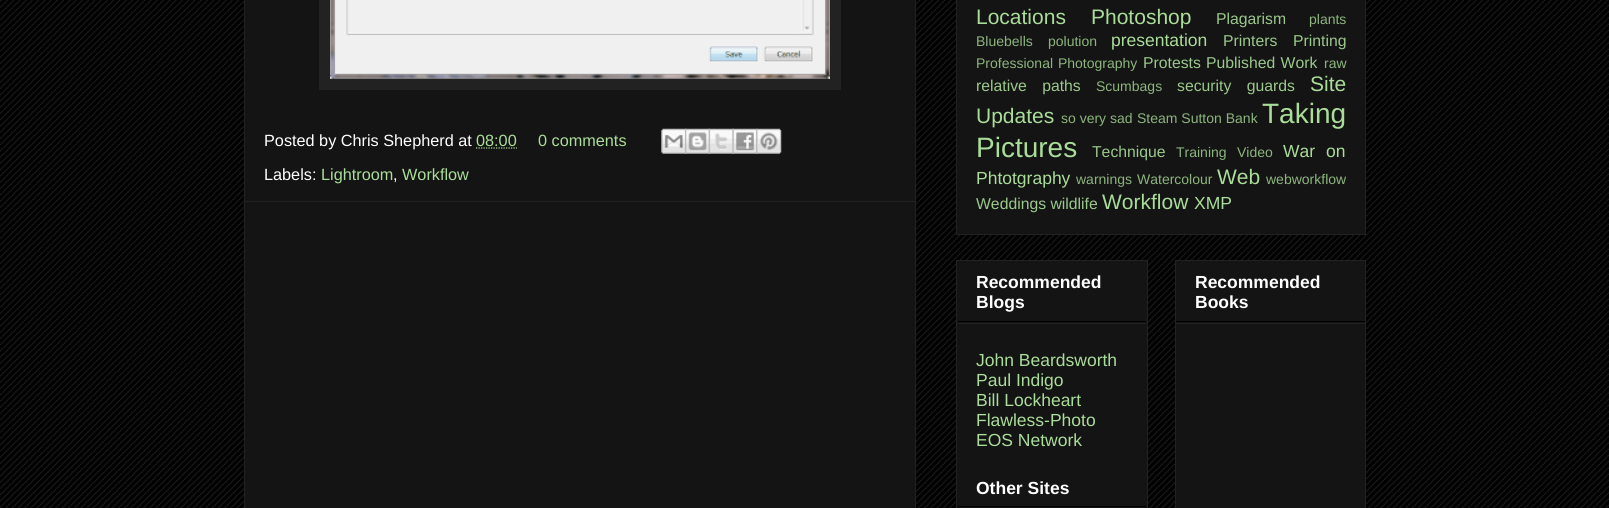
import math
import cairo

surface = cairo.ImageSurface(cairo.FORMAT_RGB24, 1609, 508)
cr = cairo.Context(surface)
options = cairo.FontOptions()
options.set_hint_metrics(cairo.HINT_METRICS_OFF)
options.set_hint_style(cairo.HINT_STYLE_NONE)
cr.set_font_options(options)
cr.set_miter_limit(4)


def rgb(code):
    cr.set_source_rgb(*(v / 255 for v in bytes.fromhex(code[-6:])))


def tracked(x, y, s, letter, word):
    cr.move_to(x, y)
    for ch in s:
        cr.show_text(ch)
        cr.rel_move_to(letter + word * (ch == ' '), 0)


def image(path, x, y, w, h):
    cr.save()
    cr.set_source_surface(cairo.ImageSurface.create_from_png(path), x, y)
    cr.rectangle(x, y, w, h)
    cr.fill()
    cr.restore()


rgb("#000000")
cr.paint()
image("img/1.png", 0, 0, 1609, 508)
rgb("#141414")
cr.rectangle(244.5, -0.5, 671, 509)
cr.fill_preserve()
rgb("#222222")
cr.set_line_width(1)
cr.stroke()
cr.rectangle(319, 0, 522, 90)
cr.fill()
image("img/2.png", 330, 0, 500, 79)
cr.new_path()
cr.move_to(476, 148)
cr.line_to(517, 148)
rgb("#aadd99")
cr.set_line_width(1.2)
cr.set_dash([1.25, 1.25])
cr.stroke()
image("img/3.png", 661, 128, 26, 26)
image("img/4.png", 685, 128, 25, 26)
image("img/5.png", 708, 128, 26, 26)
image("img/6.png", 732, 128, 26, 26)
image("img/7.png", 756, 128, 26, 26)
rgb("#222222")
cr.rectangle(245, 201, 670, 1)
cr.fill()
rgb("#141414")
cr.rectangle(956.5, -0.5, 409, 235)
cr.fill_preserve()
rgb("#222222")
cr.set_line_width(1)
cr.set_dash([])
cr.stroke()
rgb("#141414")
cr.rectangle(956.5, 260.5, 191, 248)
cr.fill_preserve()
rgb("#222222")
cr.stroke()
for x, y, w, h, color in [
    (958, 321, 188, 1, "#000000"),
    (958, 323, 188, 1, "#222222"),
    (958, 506, 188, 1, "#000000"),
]:
    rgb(color)
    cr.rectangle(x, y, w, h)
    cr.fill()
rgb("#141414")
cr.rectangle(1175.5, 260.5, 190, 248)
cr.fill_preserve()
rgb("#222222")
cr.stroke()
rgb("#000000")
cr.rectangle(1176, 321, 189, 1)
cr.fill()
rgb("#222222")
cr.rectangle(1176, 323, 189, 1)
cr.fill()
cr.select_font_face("Liberation Sans")
cr.set_font_size(16.25)
rgb("#ffffff")
cr.move_to(264, 146)
cr.show_text("Posted by Chris Shepherd at")
rgb("#aadd99")
cr.move_to(476, 146)
cr.show_text("08:00")
cr.move_to(538, 146)
cr.show_text("0 comments")
rgb("#ffffff")
cr.move_to(264, 180)
cr.show_text("Labels:")
rgb("#aadd99")
cr.move_to(321, 180)
cr.show_text("Lightroom")
rgb("#ffffff")
cr.move_to(393, 180)
cr.show_text(",")
rgb("#aadd99")
cr.move_to(402, 180)
cr.show_text("Workflow")
cr.set_font_size(21)
cr.move_to(976, 24)
cr.show_text("Locations")
cr.move_to(1091, 24)
cr.show_text("Photoshop")
cr.set_font_size(15.75)
rgb("#9bc98c")
cr.move_to(1216, 24)
cr.show_text("Plagarism")
cr.set_font_size(14)
rgb("#8cb57e")
for x, y, s in [
    (1309, 24, "plants"),
    (976, 46, "Bluebells"),
    (1048, 46, "polution"),
]:
    cr.move_to(x, y)
    cr.show_text(s)
cr.set_font_size(17.5)
rgb("#aadd99")
cr.move_to(1111, 46)
cr.show_text("presentation")
cr.set_font_size(15.75)
rgb("#9bc98c")
cr.move_to(1223, 46)
cr.show_text("Printers")
cr.move_to(1293, 46)
cr.show_text("Printing")
cr.set_font_size(14)
rgb("#8cb57e")
tracked(976, 68, "Professional Photography", 0, 1)
cr.set_font_size(15.75)
rgb("#9bc98c")
cr.move_to(1143, 68)
cr.show_text("Protests")
tracked(1206, 68, "Published Work", 0, 1)
cr.set_font_size(14)
rgb("#8cb57e")
cr.move_to(1324, 68)
cr.show_text("raw")
cr.set_font_size(15.75)
rgb("#9bc98c")
tracked(976, 91, "relative paths", 0, 11)
cr.set_font_size(14)
rgb("#8cb57e")
cr.move_to(1096, 91)
cr.show_text("Scumbags")
cr.set_font_size(15.75)
rgb("#9bc98c")
tracked(1177, 91, "security guards", 0, 11)
cr.set_font_size(21)
rgb("#aadd99")
cr.move_to(1310, 91)
cr.show_text("Site")
cr.move_to(976, 123)
cr.show_text("Updates")
cr.set_font_size(14)
rgb("#8cb57e")
cr.move_to(1061, 123)
cr.show_text("so very sad")
cr.move_to(1137, 123)
cr.show_text("Steam Sutton Bank")
cr.set_font_size(28)
rgb("#aadd99")
cr.move_to(1262, 123)
cr.show_text("Taking")
cr.move_to(976, 157)
cr.show_text("Pictures")
cr.set_font_size(15.75)
rgb("#9bc98c")
cr.move_to(1092, 157)
cr.show_text("Technique")
cr.set_font_size(14)
rgb("#8cb57e")
cr.move_to(1176, 157)
cr.show_text("Training")
cr.move_to(1237, 157)
cr.show_text("Video")
cr.set_font_size(17.5)
rgb("#aadd99")
tracked(1283, 157, "War on", 0, 6)
cr.move_to(976, 184)
cr.show_text("Phtotgraphy")
cr.set_font_size(14)
rgb("#8cb57e")
cr.move_to(1076, 184)
cr.show_text("warnings")
cr.move_to(1137, 184)
cr.show_text("Watercolour")
cr.set_font_size(21)
rgb("#aadd99")
cr.move_to(1217, 184)
cr.show_text("Web")
cr.set_font_size(14)
rgb("#8cb57e")
cr.move_to(1266, 184)
cr.show_text("webworkflow")
cr.set_font_size(15.75)
rgb("#9bc98c")
cr.move_to(976, 209)
cr.show_text("Weddings wildlife")
cr.set_font_size(21)
rgb("#aadd99")
cr.move_to(1102, 209)
cr.show_text("Workflow")
cr.set_font_size(17.5)
cr.move_to(1194, 209)
cr.show_text("XMP")
cr.select_font_face("Liberation Sans", cairo.FONT_SLANT_NORMAL, cairo.FONT_WEIGHT_BOLD)
rgb("#ffffff")
cr.move_to(976, 288)
cr.show_text("Recommended")
cr.move_to(976, 308)
cr.show_text("Blogs")
cr.select_font_face("Liberation Sans")
rgb("#aadd99")
for x, y, s in [
    (976, 366, "John Beardsworth"),
    (976, 386, "Paul Indigo"),
    (976, 406, "Bill Lockheart"),
    (976, 426, "Flawless-Photo"),
    (976, 446, "EOS Network"),
]:
    cr.move_to(x, y)
    cr.show_text(s)
cr.select_font_face("Liberation Sans", cairo.FONT_SLANT_NORMAL, cairo.FONT_WEIGHT_BOLD)
rgb("#ffffff")
for x, y, s in [
    (976, 494, "Other Sites"),
    (1195, 288, "Recommended"),
    (1195, 308, "Books"),
]:
    cr.move_to(x, y)
    cr.show_text(s)
surface.write_to_png("page.png")
